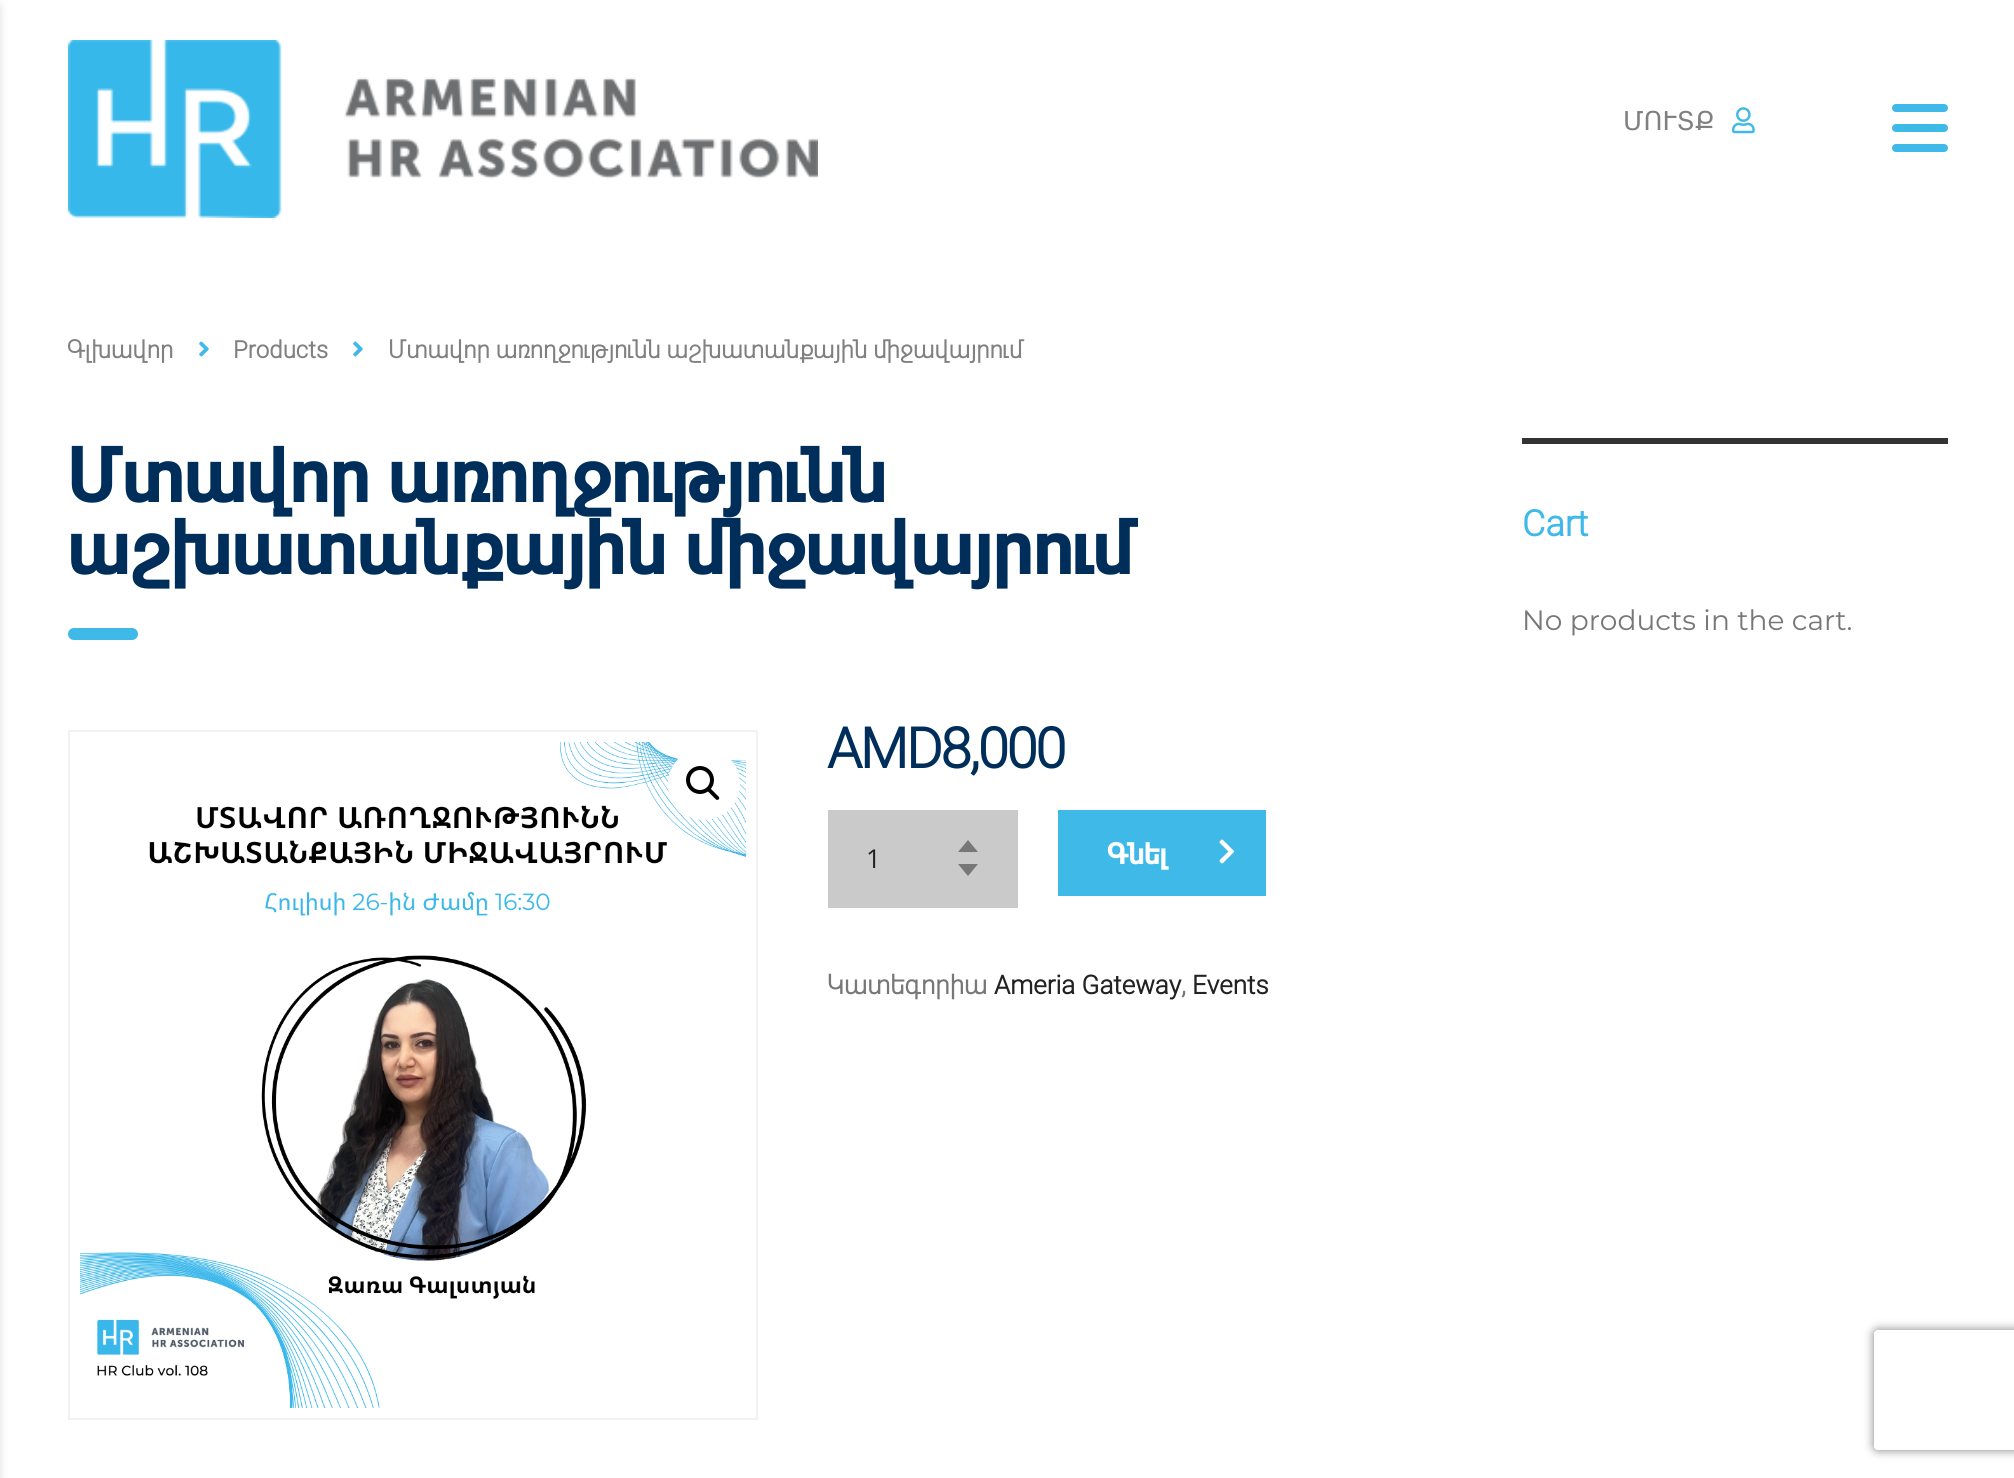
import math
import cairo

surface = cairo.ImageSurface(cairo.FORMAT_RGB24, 2014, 1478)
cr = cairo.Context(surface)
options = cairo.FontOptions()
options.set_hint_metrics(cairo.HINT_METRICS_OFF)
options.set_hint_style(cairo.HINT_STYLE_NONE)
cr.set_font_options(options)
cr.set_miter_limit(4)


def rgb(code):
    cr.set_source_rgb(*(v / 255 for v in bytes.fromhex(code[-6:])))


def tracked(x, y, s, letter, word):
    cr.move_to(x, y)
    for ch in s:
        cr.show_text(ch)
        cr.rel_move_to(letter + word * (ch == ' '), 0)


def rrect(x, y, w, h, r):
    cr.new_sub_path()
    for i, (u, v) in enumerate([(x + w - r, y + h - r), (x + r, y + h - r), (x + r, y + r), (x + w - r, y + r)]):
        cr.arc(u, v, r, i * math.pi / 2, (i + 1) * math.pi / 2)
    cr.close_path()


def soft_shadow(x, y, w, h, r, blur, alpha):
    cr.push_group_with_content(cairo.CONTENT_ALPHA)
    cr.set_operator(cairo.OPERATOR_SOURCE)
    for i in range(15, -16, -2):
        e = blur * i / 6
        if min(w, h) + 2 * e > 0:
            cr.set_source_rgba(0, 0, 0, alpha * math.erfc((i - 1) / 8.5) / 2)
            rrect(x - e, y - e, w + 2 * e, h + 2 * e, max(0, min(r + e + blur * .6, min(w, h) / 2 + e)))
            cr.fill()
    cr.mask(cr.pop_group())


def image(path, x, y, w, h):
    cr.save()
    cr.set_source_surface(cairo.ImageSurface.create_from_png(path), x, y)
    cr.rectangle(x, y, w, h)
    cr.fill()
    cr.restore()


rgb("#ffffff")
cr.paint()
rgb("#000000")
soft_shadow(-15, 6, 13, 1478, 0, 5, 0.2)
image("img/1.png", 68, 40, 750, 178)
rgb("#3fb9e8")
rrect(1892, 104, 56, 8, 4)
cr.fill()
rrect(1892, 124, 56, 8, 4)
cr.fill()
rrect(1892, 144, 56, 8, 4)
cr.fill()
image("img/2.png", 1732, 107, 23, 27)
image("img/3.png", 199, 341, 10, 16)
image("img/3.png", 353, 341, 10, 16)
rrect(68, 628, 70, 12, 6)
cr.fill()
cr.rectangle(69, 731, 688, 688)
rgb("#f2f2f2")
cr.stroke()
image("img/4.png", 80, 742, 666, 666)
rgb("#ffffff")
cr.arc(704, 784, 36, 0, 2 * math.pi)
cr.fill()
cr.arc(700, 780, 12, 0, 2 * math.pi)
rgb("#000000")
cr.set_line_width(4)
cr.stroke()
cr.new_path()
cr.move_to(707.5, 788)
cr.curve_to(708, 787, 709.5, 787, 710, 788)
cr.line_to(718.5, 796.5)
cr.curve_to(719.5, 797.5, 719.5, 798.5, 718.5, 799.5)
cr.curve_to(718, 800, 716.5, 800, 716, 799.5)
cr.line_to(707.5, 791)
cr.curve_to(706.5, 790, 706.5, 789, 707.5, 788)
cr.close_path()
cr.fill()
rgb("#cacaca")
cr.rectangle(828, 810, 190, 98)
cr.fill()
rgb("#777777")
cr.new_path()
cr.move_to(978, 852)
cr.line_to(958, 852)
cr.line_to(968, 840)
cr.close_path()
cr.move_to(958, 864)
cr.line_to(978, 864)
cr.line_to(968, 876)
cr.close_path()
cr.fill()
rgb("#3fb9e8")
cr.rectangle(1058, 810, 208, 86)
cr.fill()
image("img/5.png", 1219, 839, 15, 25)
rgb("#333333")
cr.rectangle(1522, 438, 426, 6)
cr.fill()
cr.save()
cr.set_fill_rule(cairo.FILL_RULE_EVEN_ODD)
cr.new_path()
cr.move_to(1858, 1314)
cr.line_to(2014, 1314)
cr.line_to(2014, 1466)
cr.line_to(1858, 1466)
cr.close_path()
cr.move_to(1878, 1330)
cr.line_to(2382, 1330)
cr.curve_to(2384, 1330, 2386, 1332, 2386, 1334)
cr.line_to(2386, 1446)
cr.curve_to(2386, 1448, 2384, 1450, 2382, 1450)
cr.line_to(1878, 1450)
cr.curve_to(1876, 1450, 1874, 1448, 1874, 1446)
cr.line_to(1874, 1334)
cr.curve_to(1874, 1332, 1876, 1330, 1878, 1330)
cr.close_path()
cr.clip()
rgb("#808080")
soft_shadow(1874, 1330, 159, 120, 4, 5, 1)
cr.restore()
cr.select_font_face("DejaVu Sans")
cr.set_font_size(26)
rgb("#808080")
cr.move_to(1623, 130)
cr.show_text("ՄՈՒՏՔ")
cr.select_font_face("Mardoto", cairo.FONT_SLANT_NORMAL, cairo.FONT_WEIGHT_BOLD)
cr.set_font_size(24)
for x, y, s in [
    (67, 358, "Գլխավոր"),
    (233, 358, "Products"),
    (388, 358, "Մտավոր առողջությունն աշխատանքային միջավայրում"),
]:
    cr.move_to(x, y)
    cr.show_text(s)
cr.select_font_face("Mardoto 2", cairo.FONT_SLANT_NORMAL, cairo.FONT_WEIGHT_BOLD)
cr.set_font_size(72)
rgb("#002e5b")
cr.move_to(67, 502)
cr.show_text("Մտավոր առողջությունն")
cr.move_to(67, 574)
cr.show_text("աշխատանքային միջավայրում")
cr.select_font_face("Mardoto", cairo.FONT_SLANT_NORMAL, cairo.FONT_WEIGHT_BOLD)
cr.set_font_size(56)
tracked(827, 768, "AMD8,000", -2.25, 0)
cr.select_font_face("Open Sans")
cr.set_font_size(26)
rgb("#222222")
cr.move_to(866, 868)
cr.show_text("1")
cr.select_font_face("Mardoto 2", cairo.FONT_SLANT_NORMAL, cairo.FONT_WEIGHT_BOLD)
cr.set_font_size(28)
rgb("#ffffff")
cr.move_to(1107, 864)
cr.show_text("Գնել")
cr.select_font_face("Mardoto", cairo.FONT_SLANT_NORMAL, cairo.FONT_WEIGHT_BOLD)
cr.set_font_size(26)
rgb("#777777")
cr.move_to(827, 994)
cr.show_text("Կատեգորիա")
rgb("#222222")
cr.move_to(994, 994)
cr.show_text("Ameria Gateway")
rgb("#777777")
cr.move_to(1181, 994)
cr.show_text(",")
rgb("#222222")
cr.move_to(1192, 994)
cr.show_text("Events")
cr.set_font_size(36)
rgb("#3fb9e8")
cr.move_to(1522, 536)
cr.show_text("Cart")
cr.select_font_face("Montserrat")
cr.set_font_size(28)
rgb("#777777")
cr.move_to(1522, 630)
cr.show_text("No products in the cart.")
surface.write_to_png("page.png")
